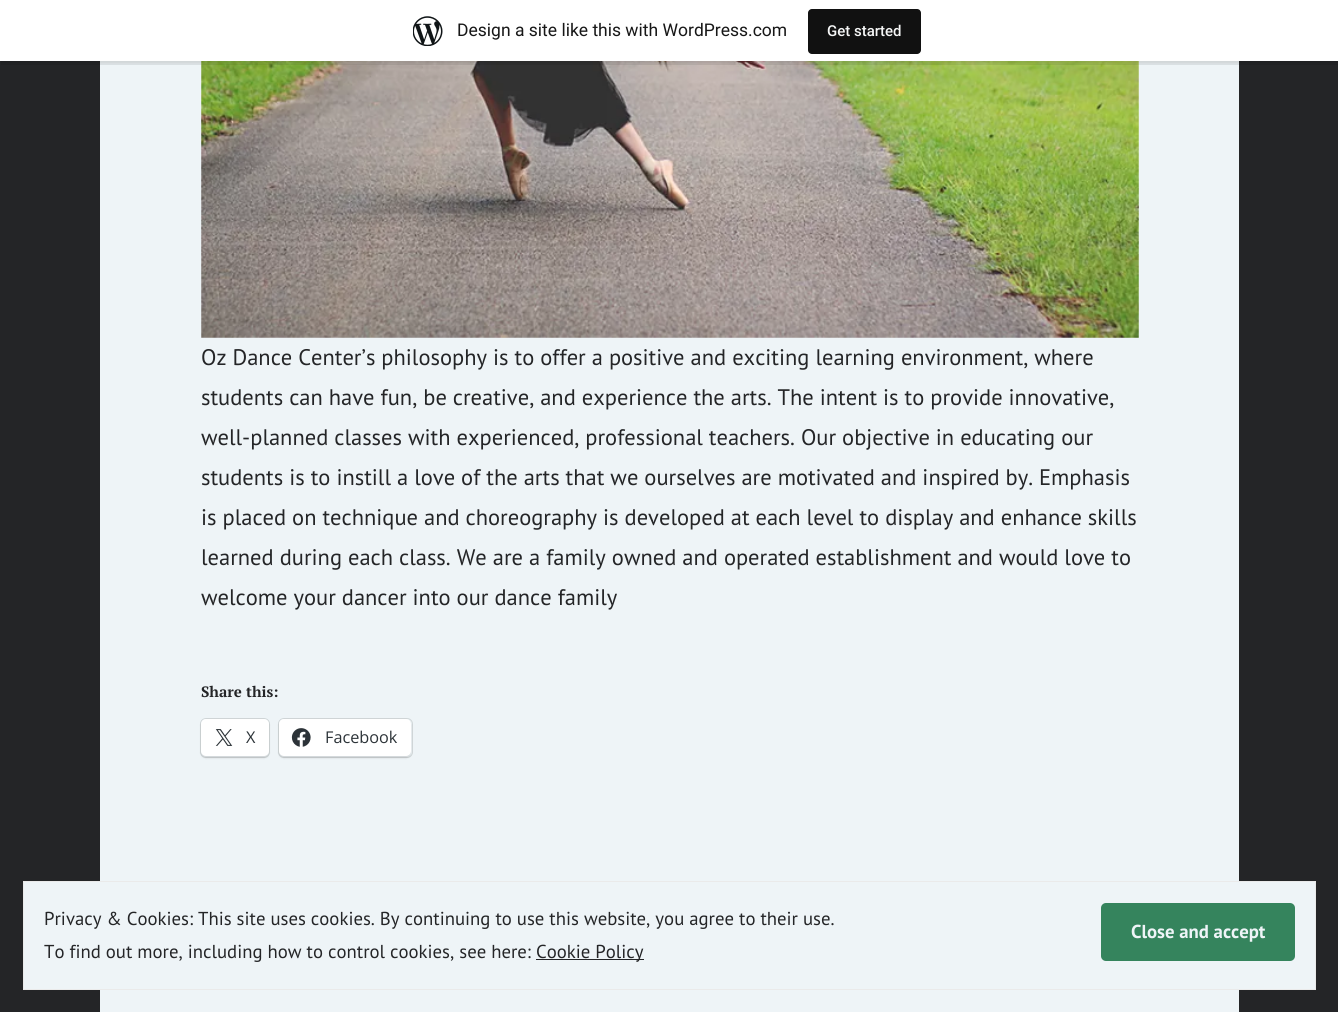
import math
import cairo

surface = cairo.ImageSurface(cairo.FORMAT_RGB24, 1338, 1012)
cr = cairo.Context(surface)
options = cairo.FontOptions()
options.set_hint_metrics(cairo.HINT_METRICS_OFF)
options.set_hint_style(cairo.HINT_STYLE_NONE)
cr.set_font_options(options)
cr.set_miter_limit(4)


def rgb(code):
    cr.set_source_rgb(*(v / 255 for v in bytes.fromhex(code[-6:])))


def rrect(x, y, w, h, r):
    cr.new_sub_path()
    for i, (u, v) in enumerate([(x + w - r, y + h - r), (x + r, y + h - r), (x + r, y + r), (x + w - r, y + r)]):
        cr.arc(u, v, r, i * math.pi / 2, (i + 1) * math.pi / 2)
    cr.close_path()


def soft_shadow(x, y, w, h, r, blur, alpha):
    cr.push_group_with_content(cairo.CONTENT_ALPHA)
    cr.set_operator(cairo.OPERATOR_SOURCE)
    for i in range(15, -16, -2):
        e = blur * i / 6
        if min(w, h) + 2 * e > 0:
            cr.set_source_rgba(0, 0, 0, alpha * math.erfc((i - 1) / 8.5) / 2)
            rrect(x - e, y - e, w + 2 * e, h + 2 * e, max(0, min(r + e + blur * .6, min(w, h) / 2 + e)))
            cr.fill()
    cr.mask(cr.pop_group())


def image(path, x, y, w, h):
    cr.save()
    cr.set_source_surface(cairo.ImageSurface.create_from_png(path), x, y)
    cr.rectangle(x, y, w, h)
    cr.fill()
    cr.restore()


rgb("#242527")
cr.paint()
rgb("#eef4f7")
cr.rectangle(100, 61, 1139, 951)
cr.fill()
image("img/2.png", 201, 61, 938, 277)
rgb("#000000")
soft_shadow(0, 1, 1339, 62, 0, 1, 0.05)
cr.set_source_rgba(0, 0, 0, 0.08)
cr.new_path()
cr.move_to(1, 61)
cr.line_to(1, 65)
cr.line_to(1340, 65)
cr.line_to(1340, 4)
cr.line_to(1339, 4)
cr.line_to(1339, 61)
cr.close_path()
cr.fill()
rgb("#ffffff")
cr.rectangle(0, 0, 1338, 61)
cr.fill()
image("img/1.png", 413, 16, 30, 30)
rgb("#111111")
rrect(808, 9, 113, 45, 4)
cr.fill()
rrect(200.5, 718.5, 69, 39, 5.5)
rgb("#d1d7d9")
cr.set_line_width(1)
cr.stroke()
rgb("#000000")
soft_shadow(201, 720, 68, 38, 5, 1, 0.12)
rgb("#ffffff")
rrect(201, 719, 68, 37, 5)
cr.fill()
image("img/3.png", 215, 729, 18, 17)
rrect(278.5, 718.5, 134, 39, 5.5)
rgb("#d1d7d9")
cr.stroke()
rgb("#000000")
soft_shadow(279, 720, 132, 38, 5, 1, 0.12)
rgb("#ffffff")
rrect(279, 719, 132, 37, 5)
cr.fill()
image("img/4.png", 291, 728, 20, 19)
rgb("#eef4f7")
cr.rectangle(23.5, 881.5, 1292, 108)
cr.fill_preserve()
rgb("#eaeaea")
cr.stroke()
rgb("#35845d")
rrect(1101, 903, 194, 58, 5)
cr.fill()
rgb("#242527")
cr.rectangle(536, 959, 108, 1)
cr.fill()
cr.select_font_face("Roboto")
cr.set_font_size(17.5)
rgb("#171717")
cr.move_to(457, 36)
cr.show_text("Design a site like this with WordPress.com")
cr.select_font_face("Roboto Medium")
cr.set_font_size(15)
rgb("#f6f7f7")
cr.move_to(827, 36)
cr.show_text("Get started")
cr.select_font_face("PT Sans")
cr.set_font_size(22.5)
rgb("#242527")
for x, y, s in [
    (201, 365, "Oz Dance Center’s philosophy is to offer a positive and exciting learning environment, where"),
    (201, 405, "students can have fun, be creative, and experience the arts. The intent is to provide innovative,"),
    (201, 445, "well-planned classes with experienced, professional teachers. Our objective in educating our"),
    (201, 485, "students is to instill a love of the arts that we ourselves are motivated and inspired by. Emphasis"),
    (201, 525, "is placed on technique and choreography is developed at each level to display and enhance skills"),
    (201, 565, "learned during each class. We are a family owned and operated establishment and would love to"),
    (201, 605, "welcome your dancer into our dance family"),
]:
    cr.move_to(x, y)
    cr.show_text(s)
cr.select_font_face("PT Serif", cairo.FONT_SLANT_NORMAL, cairo.FONT_WEIGHT_BOLD)
cr.set_font_size(15)
cr.move_to(201, 697)
cr.show_text("Share this:")
cr.select_font_face("Open Sans")
cr.set_font_size(16.25)
rgb("#2c3338")
cr.move_to(246, 743)
cr.show_text("X")
cr.move_to(325, 743)
cr.show_text("Facebook")
cr.select_font_face("PT Sans")
cr.set_font_size(18.75)
rgb("#242527")
cr.move_to(44, 925)
cr.show_text("Privacy & Cookies: This site uses cookies. By continuing to use this website, you agree to their use.")
cr.select_font_face("PT Sans", cairo.FONT_SLANT_NORMAL, cairo.FONT_WEIGHT_BOLD)
rgb("#eef4f7")
cr.move_to(1131, 938)
cr.show_text("Close and accept")
cr.select_font_face("PT Sans")
rgb("#242527")
cr.move_to(44, 958)
cr.show_text("To find out more, including how to control cookies, see here:")
cr.move_to(536, 958)
cr.show_text("Cookie Policy")
surface.write_to_png("page.png")
